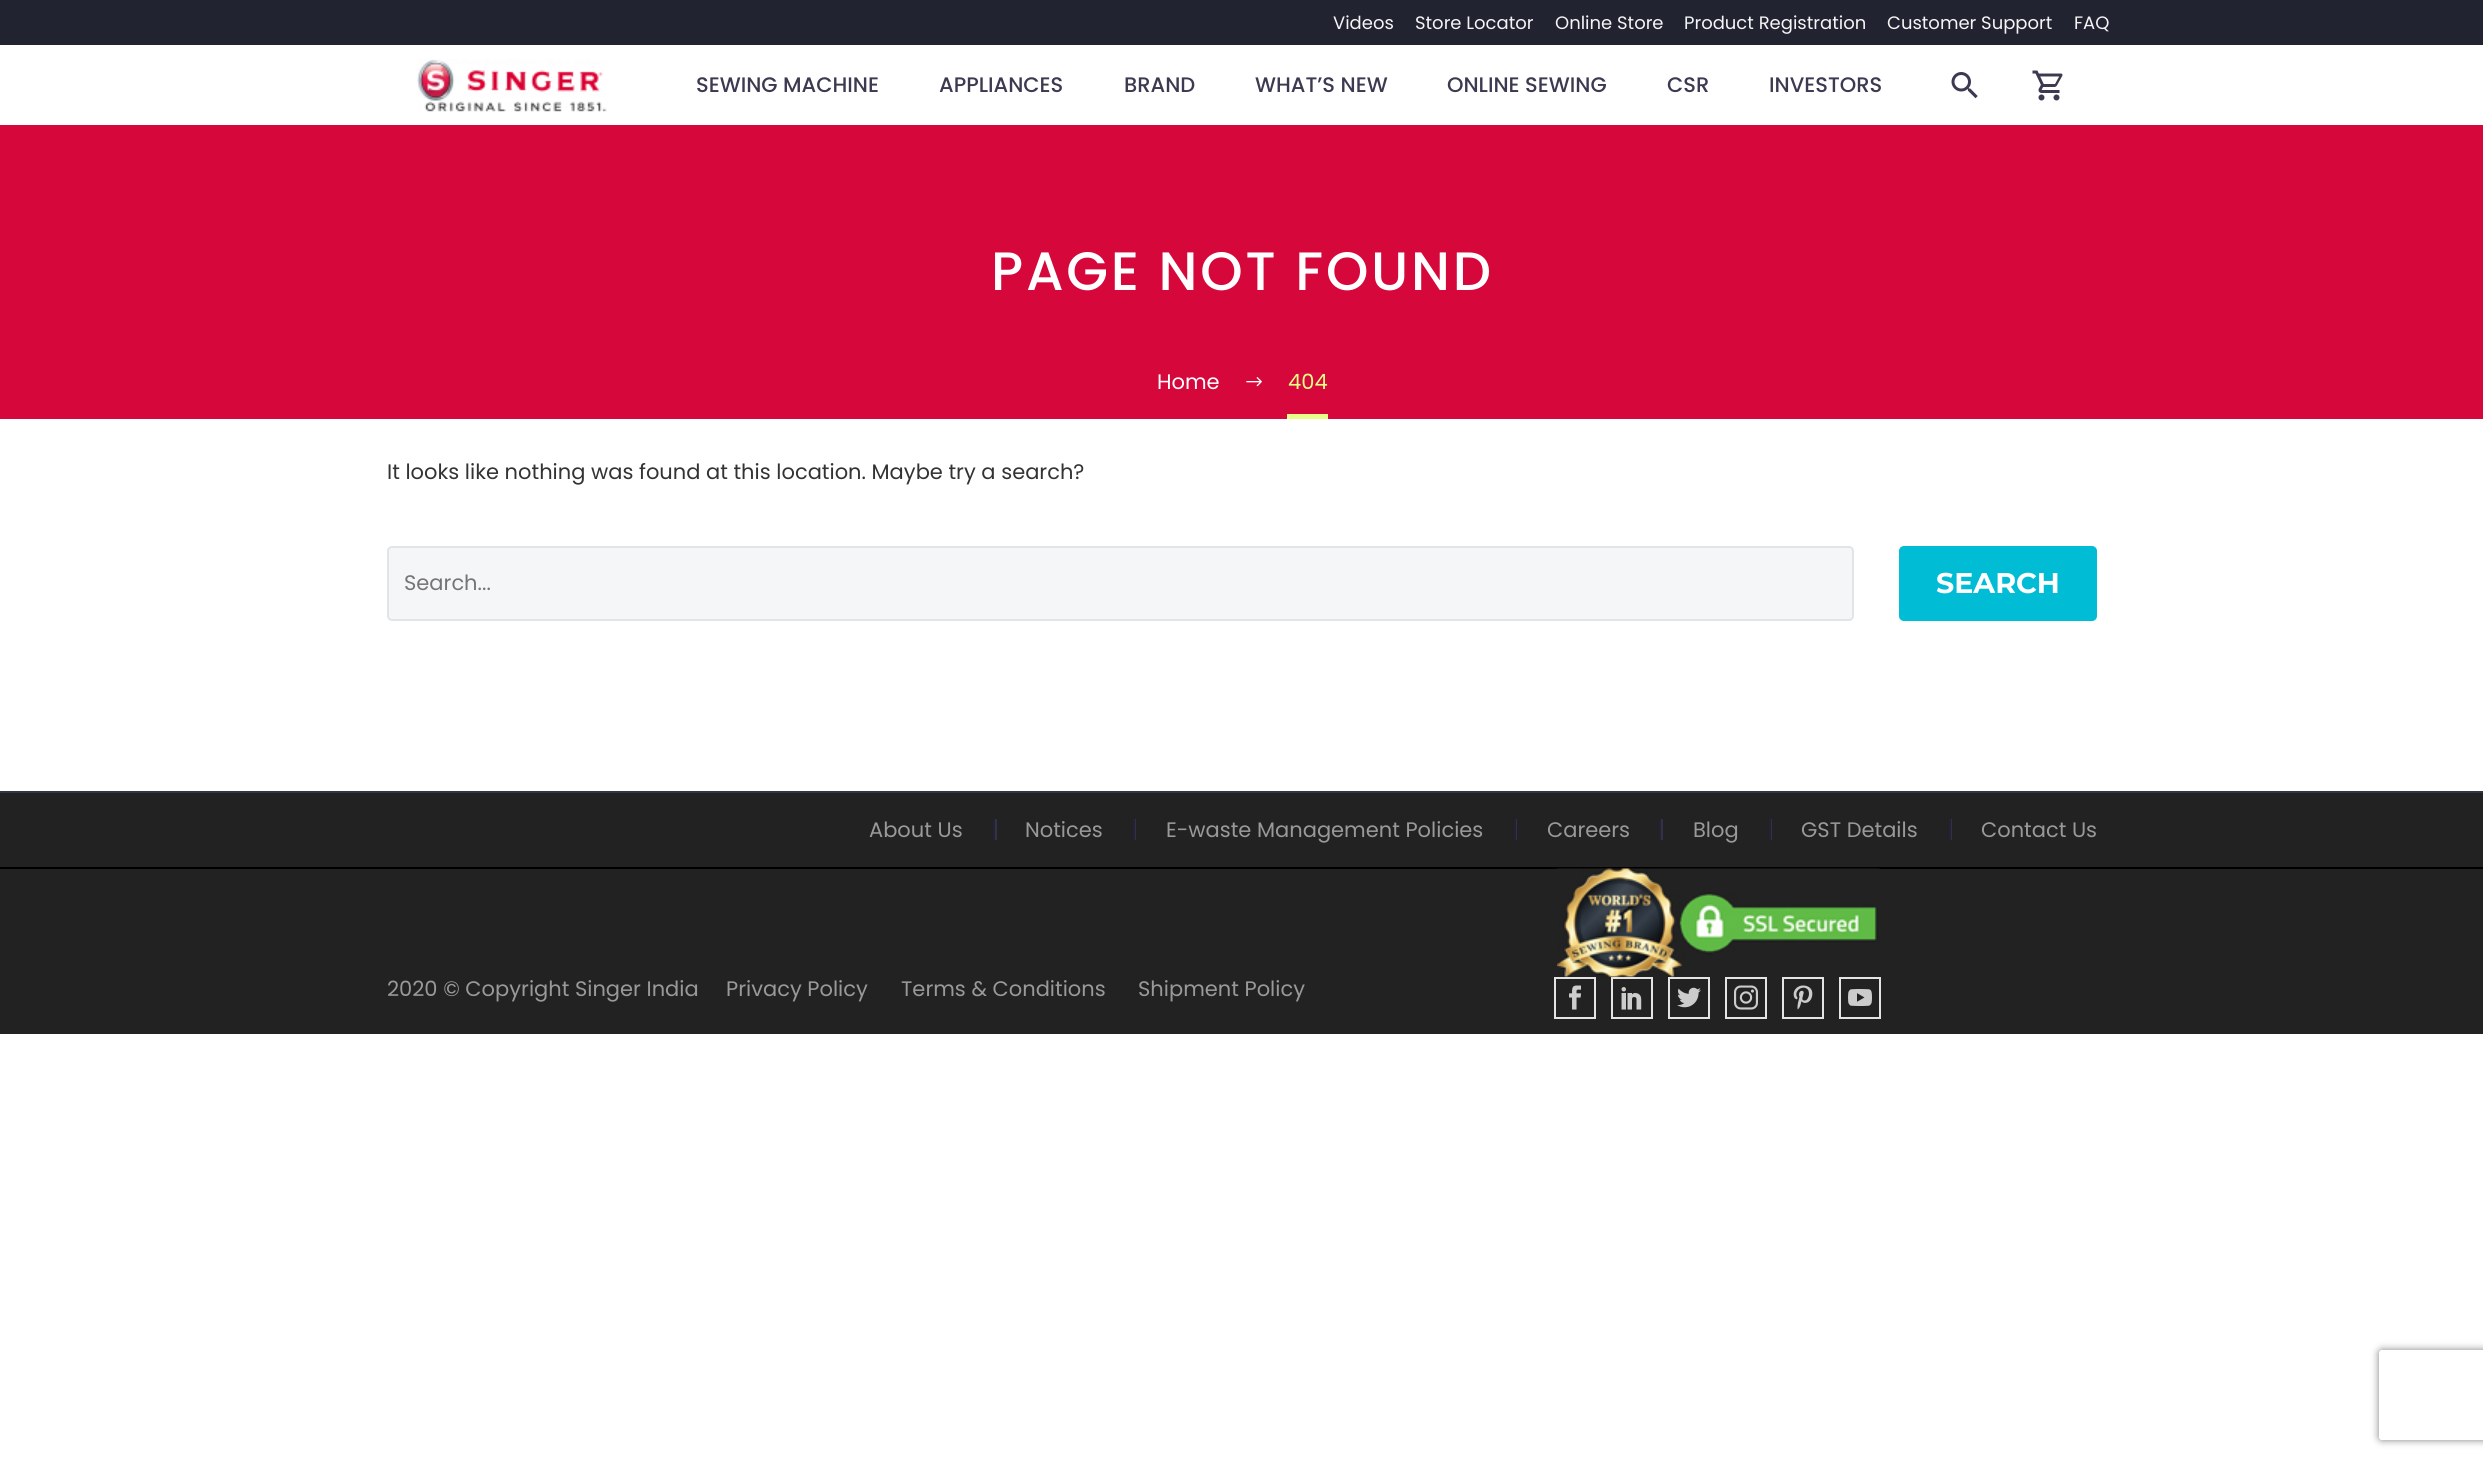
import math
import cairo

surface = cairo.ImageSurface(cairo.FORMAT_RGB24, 2483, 1460)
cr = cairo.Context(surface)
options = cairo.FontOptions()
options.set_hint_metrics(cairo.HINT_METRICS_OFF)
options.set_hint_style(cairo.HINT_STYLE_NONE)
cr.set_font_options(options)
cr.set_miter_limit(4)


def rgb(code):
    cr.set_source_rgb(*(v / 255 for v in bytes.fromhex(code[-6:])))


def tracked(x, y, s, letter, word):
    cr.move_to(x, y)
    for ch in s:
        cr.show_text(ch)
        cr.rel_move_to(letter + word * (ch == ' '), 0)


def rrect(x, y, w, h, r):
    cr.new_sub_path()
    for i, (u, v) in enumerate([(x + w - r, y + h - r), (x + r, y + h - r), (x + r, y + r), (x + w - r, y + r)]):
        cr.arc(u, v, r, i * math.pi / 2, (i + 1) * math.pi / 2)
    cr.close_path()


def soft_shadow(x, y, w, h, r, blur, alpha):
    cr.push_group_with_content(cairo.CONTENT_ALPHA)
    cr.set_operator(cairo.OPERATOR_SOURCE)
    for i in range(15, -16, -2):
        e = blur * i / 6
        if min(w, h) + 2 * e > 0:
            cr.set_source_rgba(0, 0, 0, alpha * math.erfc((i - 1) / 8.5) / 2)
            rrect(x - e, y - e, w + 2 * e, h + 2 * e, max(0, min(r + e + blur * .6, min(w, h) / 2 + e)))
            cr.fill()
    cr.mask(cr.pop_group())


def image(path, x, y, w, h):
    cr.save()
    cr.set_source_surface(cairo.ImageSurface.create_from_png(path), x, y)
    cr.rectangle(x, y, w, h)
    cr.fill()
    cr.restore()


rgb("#ffffff")
cr.paint()
rgb("#212331")
cr.rectangle(0, 0, 2483, 45)
cr.fill()
image("img/1.png", 417, 59, 190, 53)
image("img/2.png", 1951, 72, 27, 27)
image("img/3.png", 2032, 70, 31, 31)
rgb("#d6073b")
cr.rectangle(0, 125, 2483, 294)
cr.fill()
image("img/4.png", 1246, 377, 16, 10)
rgb("#e7ff89")
cr.rectangle(1287, 414, 41, 5)
cr.fill()
rgb("#f4f6f7")
rrect(388, 547, 1465, 73, 4)
cr.fill_preserve()
rgb("#dfe5e8")
cr.stroke()
rgb("#00bcd4")
rrect(1899, 546, 198, 75, 5)
cr.fill()
for x, y, w, h, color in [
    (0, 793, 2483, 241, "#222222"),
    (0, 791, 2483, 2, "#313646"),
    (0, 867, 2483, 2, "#000000"),
    (995, 819, 2, 21, "#333146"),
    (993, 819, 2, 21, "#232234"),
    (1135, 819, 1, 21, "#333146"),
    (1133, 819, 2, 21, "#232234"),
    (1516, 819, 1, 21, "#333146"),
    (1514, 819, 2, 21, "#232234"),
    (1661, 819, 2, 21, "#333146"),
    (1659, 819, 2, 21, "#232234"),
    (1771, 819, 1, 21, "#333146"),
    (1769, 819, 2, 21, "#232234"),
    (1951, 819, 1, 21, "#333146"),
    (1949, 819, 2, 21, "#232234"),
]:
    rgb(color)
    cr.rectangle(x, y, w, h)
    cr.fill()
image("img/5.png", 1557, 868, 323, 109)
cr.rectangle(1555, 978, 40, 40)
rgb("#e4e4e4")
cr.stroke()
image("img/6.png", 1569, 985, 12, 25)
cr.rectangle(1612, 978, 40, 40)
cr.stroke()
image("img/7.png", 1621, 987, 21, 23)
cr.rectangle(1669, 978, 40, 40)
cr.stroke()
image("img/8.png", 1677, 987, 24, 21)
cr.rectangle(1726, 978, 40, 40)
cr.stroke()
image("img/9.png", 1734, 985, 24, 25)
cr.rectangle(1783, 978, 40, 40)
cr.stroke()
image("img/10.png", 1793, 985, 20, 25)
cr.rectangle(1840, 978, 40, 40)
cr.stroke()
image("img/11.png", 1848, 989, 24, 17)
cr.save()
cr.set_fill_rule(cairo.FILL_RULE_EVEN_ODD)
cr.new_path()
cr.move_to(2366, 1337)
cr.line_to(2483, 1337)
cr.line_to(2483, 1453)
cr.line_to(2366, 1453)
cr.close_path()
cr.move_to(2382, 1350)
cr.line_to(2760, 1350)
cr.curve_to(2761.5, 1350, 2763, 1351.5, 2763, 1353)
cr.line_to(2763, 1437)
cr.curve_to(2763, 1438.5, 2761.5, 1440, 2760, 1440)
cr.line_to(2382, 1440)
cr.curve_to(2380.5, 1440, 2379, 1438.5, 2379, 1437)
cr.line_to(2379, 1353)
cr.curve_to(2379, 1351.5, 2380.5, 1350, 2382, 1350)
cr.close_path()
cr.clip()
rgb("#808080")
soft_shadow(2379, 1350, 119, 90, 3, 4, 1)
cr.restore()
cr.select_font_face("Poppins")
cr.set_font_size(18)
rgb("#f5f5f5")
for x, y, s in [
    (1333, 29, "Videos"),
    (1415, 29, "Store Locator"),
    (1555, 29, "Online Store"),
    (1684, 29, "Product Registration"),
    (1887, 29, "Customer Support"),
    (2074, 29, "FAQ"),
]:
    cr.move_to(x, y)
    cr.show_text(s)
cr.select_font_face("Poppins Medium")
cr.set_font_size(21)
rgb("#3c3950")
for x, y, s in [
    (696, 92, "SEWING MACHINE"),
    (939, 92, "APPLIANCES"),
    (1124, 92, "BRAND"),
    (1255, 92, "WHAT’S NEW"),
    (1447, 92, "ONLINE SEWING"),
    (1667, 92, "CSR"),
    (1769, 92, "INVESTORS"),
]:
    cr.move_to(x, y)
    cr.show_text(s)
cr.set_font_size(54)
rgb("#ffffff")
tracked(991, 290, "PAGE NOT FOUND", 2.75, 0)
cr.select_font_face("Poppins")
cr.set_font_size(21)
cr.move_to(1157, 389)
cr.show_text("Home")
rgb("#e7ff89")
cr.move_to(1288, 389)
cr.show_text("404")
rgb("#333333")
cr.move_to(387, 479)
cr.show_text("It looks like nothing was found at this location. Maybe try a search?")
rgb("#757575")
cr.move_to(404, 590)
cr.show_text("Search...")
cr.select_font_face("Montserrat", cairo.FONT_SLANT_NORMAL, cairo.FONT_WEIGHT_BOLD)
cr.set_font_size(28.5)
rgb("#ffffff")
cr.move_to(1936, 593)
cr.show_text("SEARCH")
cr.select_font_face("Poppins")
cr.set_font_size(21)
rgb("#999999")
for x, y, s in [
    (869, 837, "About Us"),
    (1025, 837, "Notices"),
    (1166, 837, "E-waste Management Policies"),
    (1547, 837, "Careers"),
    (1693, 837, "Blog"),
    (1801, 837, "GST Details"),
    (1981, 837, "Contact Us"),
    (387, 996, "2020 © Copyright Singer India"),
    (726, 996, "Privacy Policy"),
    (901, 996, "Terms & Conditions"),
    (1138, 996, "Shipment Policy"),
]:
    cr.move_to(x, y)
    cr.show_text(s)
surface.write_to_png("page.png")
